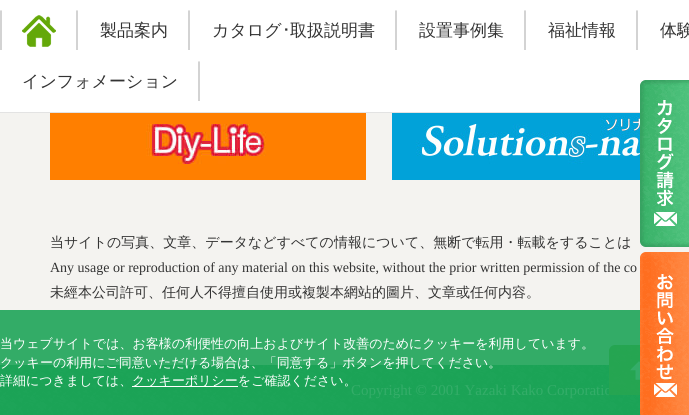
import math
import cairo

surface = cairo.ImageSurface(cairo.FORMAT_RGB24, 689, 415)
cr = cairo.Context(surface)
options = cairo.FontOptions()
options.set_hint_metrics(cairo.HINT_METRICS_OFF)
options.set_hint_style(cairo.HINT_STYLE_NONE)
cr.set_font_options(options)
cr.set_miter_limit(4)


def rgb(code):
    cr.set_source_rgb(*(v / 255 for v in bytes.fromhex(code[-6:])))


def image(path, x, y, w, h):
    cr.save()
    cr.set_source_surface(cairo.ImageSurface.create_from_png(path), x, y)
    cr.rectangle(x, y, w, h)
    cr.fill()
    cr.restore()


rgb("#f4f3f0")
cr.paint()
rgb("#ffffff")
cr.rectangle(0, 0, 689, 112)
cr.fill()
rgb("#e3e3e3")
cr.rectangle(0, 112, 640, 1)
cr.fill()
image("img/1.png", 0, 10, 78, 40)
image("img/2.png", 22, 15, 34, 32)
image("img/3.png", 188, 10, 2, 40)
image("img/3.png", 395, 10, 2, 40)
image("img/3.png", 524, 10, 2, 40)
image("img/3.png", 636, 10, 2, 40)
image("img/3.png", 198, 61, 2, 40)
rgb("#33ac67")
cr.rectangle(0, 310, 640, 55)
cr.fill()
image("img/4.png", 50, 113, 316, 67)
image("img/5.png", 392, 113, 248, 67)
image("img/6.png", 0, 365, 641, 50)
image("img/7.png", 640, 80, 49, 167)
image("img/8.png", 640, 252, 49, 163)
rgb("#ffffff")
cr.rectangle(132, 386, 106, 1)
cr.fill()
cr.select_font_face("WenQuanYi Zen Hei Medium")
cr.set_font_size(17)
rgb("#333333")
cr.move_to(100, 36)
cr.show_text("製品案内")
cr.move_to(212, 36)
cr.show_text("カタログ")
cr.select_font_face("IPAGothic")
cr.move_to(282, 36)
cr.show_text("･")
cr.select_font_face("WenQuanYi Zen Hei Medium")
for x, y, s in [
    (290, 36, "取扱説明書"),
    (419, 36, "設置事例集"),
    (548, 36, "福祉情報"),
    (660, 36, "体験"),
    (22, 87, "インフォメーション"),
]:
    cr.move_to(x, y)
    cr.show_text(s)
cr.set_font_size(14)
cr.move_to(50, 247)
cr.show_text("当サイトの写真、文章、データなどすべての情報について、無断で転用・転載をすることは")
cr.select_font_face("Liberation Serif")
cr.move_to(50, 272)
cr.show_text("Any usage or reproduction of any material on this website, without the prior written permission of the co")
cr.select_font_face("WenQuanYi Zen Hei Medium")
cr.move_to(50, 297)
cr.show_text("未經本公司許可、任何人不得擅自使用或複製本網站的圖片、文章或任何内容。")
cr.select_font_face("Liberation Serif")
cr.set_font_size(15)
rgb("#34ad69")
cr.move_to(351, 395)
cr.show_text("Copyright © 2001 Yazaki Kako Corporatio")
cr.select_font_face("WenQuanYi Zen Hei Medium")
cr.set_font_size(13)
rgb("#ffffff")
for x, y, s in [
    (0, 348, "当ウェブサイトでは、お客様の利便性の向上およびサイト改善のためにクッキーを利用しています。"),
    (0, 367, "クッキーの利用にご同意いただける場合は、「同意する」ボタンを押してください。"),
    (0, 385, "詳細につきましては、"),
    (132, 385, "クッキーポリシーをご確認ください。"),
]:
    cr.move_to(x, y)
    cr.show_text(s)
image("img/9.png", 609, 345, 31, 50)
surface.write_to_png("page.png")
